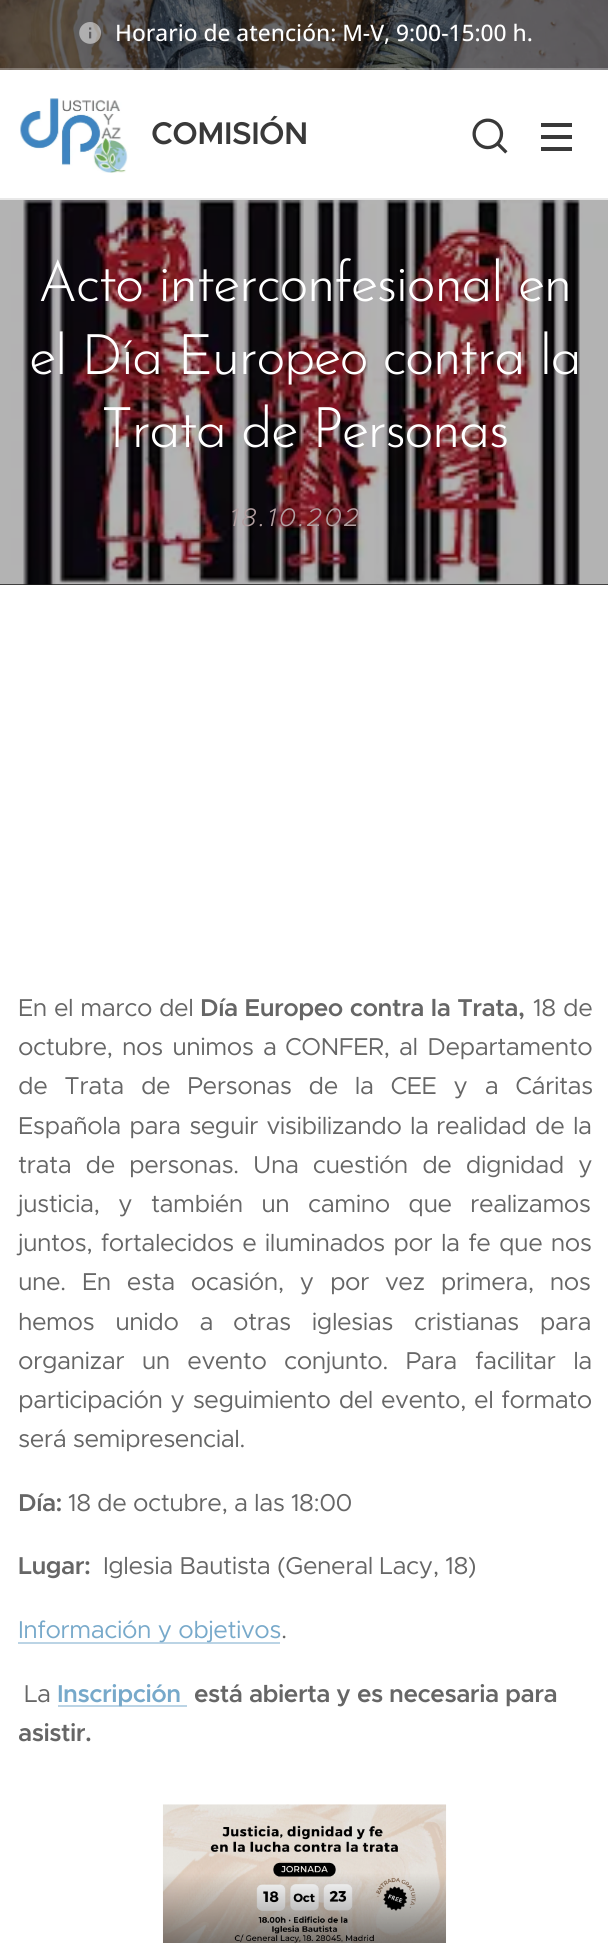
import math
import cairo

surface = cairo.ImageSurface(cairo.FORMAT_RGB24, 608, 1943)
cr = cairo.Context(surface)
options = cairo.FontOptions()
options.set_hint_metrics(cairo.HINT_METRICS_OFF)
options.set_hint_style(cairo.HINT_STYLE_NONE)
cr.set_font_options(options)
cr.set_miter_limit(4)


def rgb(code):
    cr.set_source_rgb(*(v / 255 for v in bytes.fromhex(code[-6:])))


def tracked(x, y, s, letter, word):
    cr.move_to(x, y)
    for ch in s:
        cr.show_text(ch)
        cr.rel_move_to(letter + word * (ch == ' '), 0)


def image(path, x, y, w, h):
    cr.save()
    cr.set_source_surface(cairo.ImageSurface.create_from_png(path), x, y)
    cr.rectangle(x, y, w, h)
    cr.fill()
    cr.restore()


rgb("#ffffff")
cr.paint()
image("img/1.png", 0, 0, 608, 70)
image("img/2.png", 79, 22, 22, 22)
cr.set_source_rgba(1, 1, 1, 0.3)
cr.rectangle(0, 68, 608, 2)
cr.fill()
image("img/3.png", 20, 98, 108, 75)
image("img/4.png", 472, 118, 36, 36)
for x, y, w, h, color in [
    (541, 135, 31, 4, "#393939"),
    (541, 123, 31, 4, "#393939"),
    (541, 147, 31, 4, "#393939"),
    (0, 198, 608, 2, "#e8e8e8"),
    (0, 584, 608, 1, "#1b1b1b"),
]:
    rgb(color)
    cr.rectangle(x, y, w, h)
    cr.fill()
image("img/5.png", 0, 200, 608, 385)
rgb("#bbd4e5")
cr.rectangle(18, 1642, 262, 2)
cr.fill()
cr.rectangle(58, 1705, 129, 2)
cr.fill()
image("img/6.png", 162, 1804, 285, 139)
cr.select_font_face("Open Sans Medium")
cr.set_font_size(22.75)
rgb("#ffffff")
cr.move_to(115, 41)
cr.show_text("Horario de atención: M-V, 9:00-15:00 h.")
cr.select_font_face("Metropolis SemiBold")
cr.set_font_size(31.5)
rgb("#393939")
tracked(151, 144, "COMISIÓN", -0.5, 0)
cr.select_font_face("Josefin Sans Light")
cr.set_font_size(56)
rgb("#ffffff")
for x, y, s in [
    (38, 301, "Acto interconfesional en"),
    (29, 374, "el Día Europeo contra la"),
    (101, 447, "Trata de Personas"),
]:
    tracked(x, y, s, -1.7, 0)
cr.select_font_face("Metropolis Light", cairo.FONT_SLANT_ITALIC)
cr.set_font_size(25.5)
rgb("#b29fa1")
tracked(230, 526, "18.10.202", 2.5, 0)
cr.select_font_face("Metropolis")
cr.set_font_size(24.5)
rgb("#666666")
tracked(18, 1016, "En el marco del", -0.5, 0.5)
cr.select_font_face("Metropolis SemiBold")
tracked(200, 1016, "Día Europeo contra la Trata,", -0.5, 0.5)
cr.select_font_face("Metropolis")
tracked(533, 1016, "18 de", -0.5, 1)
tracked(18, 1055, "octubre, nos unimos a", -0.5, 3)
tracked(285, 1055, "CONFER, al Departamento", -0.5, 3)
tracked(18, 1094, "de Trata de Personas de la CEE y a Cáritas", -0.5, 10.5)
tracked(18, 1134, "Española para seguir visibilizando la", -0.5, 2)
tracked(436, 1134, "realidad de la", -0.5, 2)
tracked(18, 1173, "trata de personas. Una cuestión de dignidad y", -0.5, 7.75)
tracked(18, 1212, "justicia, y", -0.5, 12)
tracked(151, 1212, "también un camino que realizamos", -0.5, 12)
tracked(18, 1251, "juntos, fortalecidos e iluminados por", -0.5, 2)
tracked(441, 1251, "la fe que nos", -0.5, 2)
tracked(18, 1290, "une. En esta ocasión, y por vez primera, nos", -0.5, 9.5)
tracked(18, 1330, "hemos unido a", -0.5, 14.5)
tracked(233, 1330, "otras iglesias cristianas para", -0.5, 14.5)
tracked(18, 1369, "organizar un evento conjunto. Para", -0.5, 11)
tracked(475, 1369, "facilitar la", -0.5, 11)
tracked(18, 1408, "participación y seguimiento del evento, el formato", -0.5, 1.5)
tracked(18, 1447, "será semipresencial.", -0.5, 0)
cr.select_font_face("Metropolis SemiBold")
tracked(18, 1511, "Día:", -0.5, 0)
cr.select_font_face("Metropolis")
tracked(68, 1511, "18 de octubre, a las 18:00", -0.5, 0)
cr.select_font_face("Metropolis SemiBold")
tracked(18, 1574, "Lugar:", -0.5, 0)
cr.select_font_face("Metropolis")
tracked(103, 1574, "Iglesia Bautista (General Lacy, 18)", -0.5, 0)
rgb("#77a9ca")
tracked(18, 1638, "Información y objetivos", -0.5, 0)
rgb("#666666")
tracked(281, 1638, ".", -0.5, 0)
tracked(24, 1702, "La", -0.5, 0)
cr.select_font_face("Metropolis SemiBold")
rgb("#77a9ca")
tracked(57, 1702, "Inscripción", -0.5, 0)
rgb("#666666")
tracked(194, 1702, "está abierta y es necesaria para", -0.5, 0)
tracked(18, 1741, "asistir.", -0.5, 0)
surface.write_to_png("page.png")
